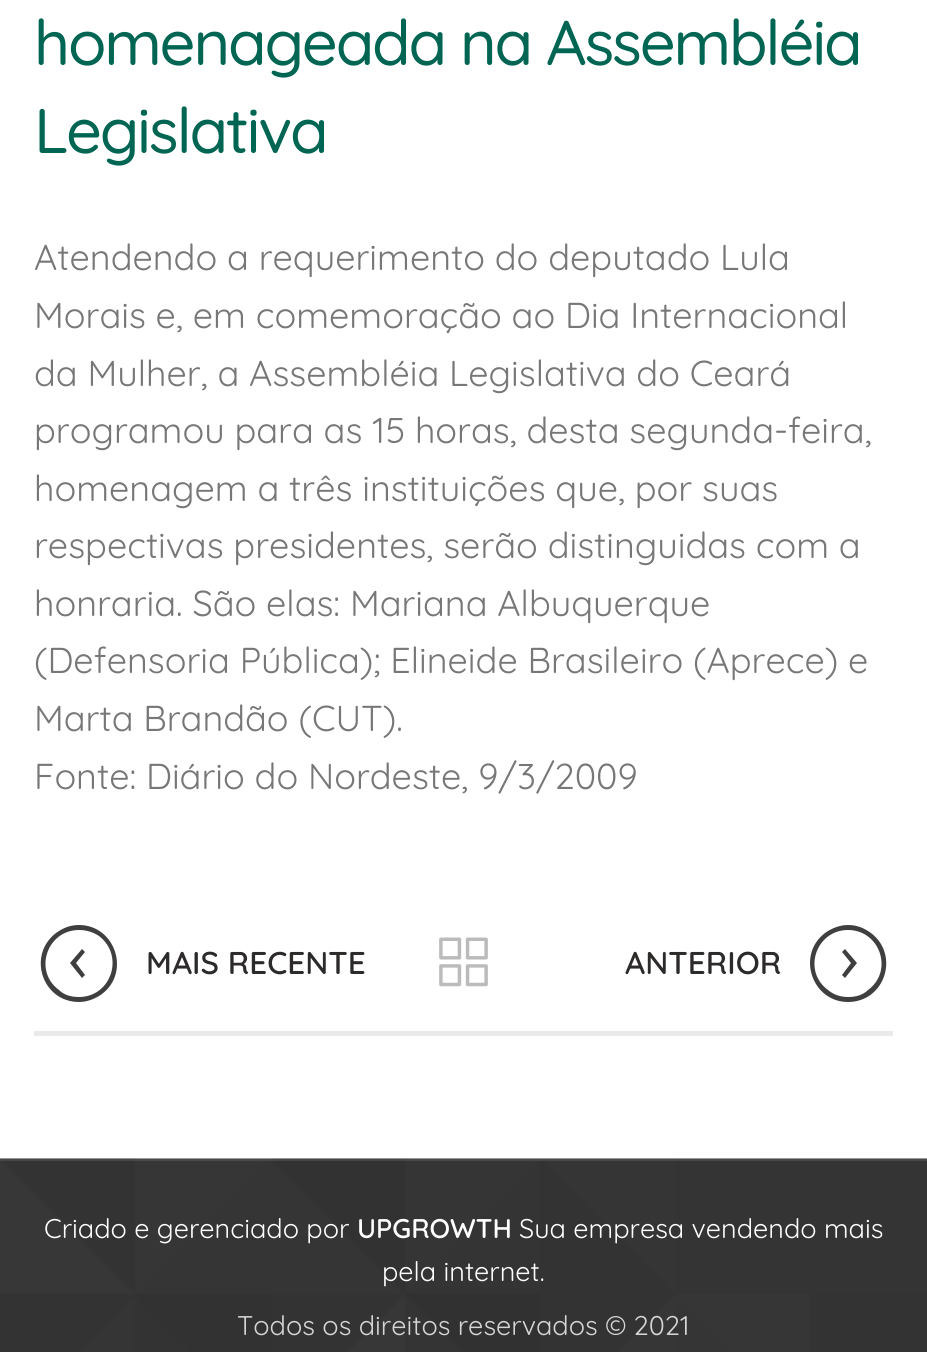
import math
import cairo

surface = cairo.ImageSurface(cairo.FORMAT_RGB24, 927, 1352)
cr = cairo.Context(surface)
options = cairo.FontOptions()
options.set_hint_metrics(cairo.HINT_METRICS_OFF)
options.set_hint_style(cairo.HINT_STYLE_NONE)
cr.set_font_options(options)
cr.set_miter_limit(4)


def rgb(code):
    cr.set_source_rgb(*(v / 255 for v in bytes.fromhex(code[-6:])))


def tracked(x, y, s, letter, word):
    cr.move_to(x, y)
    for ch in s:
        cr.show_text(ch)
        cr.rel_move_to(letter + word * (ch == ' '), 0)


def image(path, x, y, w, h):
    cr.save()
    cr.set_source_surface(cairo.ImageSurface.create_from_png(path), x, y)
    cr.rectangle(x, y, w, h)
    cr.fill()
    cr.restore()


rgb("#ffffff")
cr.paint()
rgb("#eaeaea")
cr.rectangle(34, 1031, 859, 5)
cr.fill()
rgb("#3f3f3f")
cr.new_path()
cr.move_to(79, 1002)
cr.curve_to(42, 1002, 27, 955, 56, 933)
cr.curve_to(63, 928, 70, 925, 79, 925)
cr.curve_to(115, 925, 131, 972, 102, 994)
cr.curve_to(95, 999, 87, 1002, 79, 1002)
cr.close_path()
cr.move_to(79, 930)
cr.curve_to(47, 930, 33, 971, 59, 990)
cr.curve_to(64, 995, 71, 997, 79, 997)
cr.curve_to(111, 997, 125, 956, 99, 936)
cr.curve_to(93, 932, 86, 930, 79, 930)
cr.close_path()
cr.move_to(82, 978)
cr.line_to(70, 963)
cr.line_to(82, 949)
cr.line_to(85, 952)
cr.line_to(76, 963)
cr.line_to(85, 975)
cr.close_path()
cr.fill()
image("img/1.png", 439, 937, 49, 50)
cr.new_path()
cr.move_to(848, 1002)
cr.curve_to(812, 1002, 796, 955, 825, 933)
cr.curve_to(832, 928, 840, 925, 848, 925)
cr.curve_to(857, 925, 864, 928, 871, 933)
cr.curve_to(900, 955, 885, 1002, 848, 1002)
cr.close_path()
cr.move_to(848, 930)
cr.curve_to(816, 930, 802, 971, 828, 990)
cr.curve_to(834, 995, 841, 997, 848, 997)
cr.curve_to(856, 997, 863, 995, 868, 990)
cr.curve_to(894, 971, 880, 930, 848, 930)
cr.close_path()
cr.move_to(845, 978)
cr.line_to(842, 975)
cr.line_to(851, 963)
cr.line_to(842, 952)
cr.line_to(845, 949)
cr.line_to(857, 963)
cr.close_path()
cr.fill()
image("img/2.png", 0, 1158, 927, 194)
cr.set_source_rgba(1, 1, 1, 0.1)
cr.rectangle(0, 1159, 927, 2)
cr.fill()
cr.select_font_face("Quicksand Medium")
cr.set_font_size(63)
rgb("#006552")
tracked(34, 65, "homenageada na Assembléia", -2.25, 0)
tracked(34, 153, "Legislativa", -2.25, 0)
cr.select_font_face("Quicksand")
cr.set_font_size(36)
rgb("#777777")
for x, y, s in [
    (34, 270, "Atendendo a requerimento do deputado Lula"),
    (34, 328, "Morais e, em comemoração ao Dia Internacional"),
    (34, 386, "da Mulher, a Assembléia Legislativa do Ceará"),
    (34, 443, "programou para as 15 horas, desta segunda-feira,"),
    (34, 501, "homenagem a três instituições que, por suas"),
    (34, 558, "respectivas presidentes, serão distinguidas com a"),
    (34, 616, "honraria. São elas: Mariana Albuquerque"),
    (34, 673, "(Defensoria Pública); Elineide Brasileiro (Aprece) e"),
    (34, 731, "Marta Brandão (CUT)."),
    (34, 789, "Fonte: Diário do Nordeste, 9/3/2009"),
]:
    cr.move_to(x, y)
    cr.show_text(s)
cr.select_font_face("Quicksand SemiBold")
cr.set_font_size(31.5)
rgb("#2d2a2a")
cr.move_to(146, 974)
cr.show_text("MAIS RECENTE")
cr.move_to(625, 974)
cr.show_text("ANTERIOR")
cr.select_font_face("Quicksand")
cr.set_font_size(27)
rgb("#ffffff")
cr.move_to(44, 1238)
cr.show_text("Criado e gerenciado por")
cr.select_font_face("Quicksand SemiBold")
cr.move_to(357, 1238)
cr.show_text("UPGROWTH")
cr.select_font_face("Quicksand")
cr.move_to(519, 1238)
cr.show_text("Sua empresa vendendo mais")
cr.move_to(382, 1281)
cr.show_text("pela internet.")
rgb("#d6d6d6")
cr.move_to(237, 1335)
cr.show_text("Todos os direitos reservados © 2021")
surface.write_to_png("page.png")
